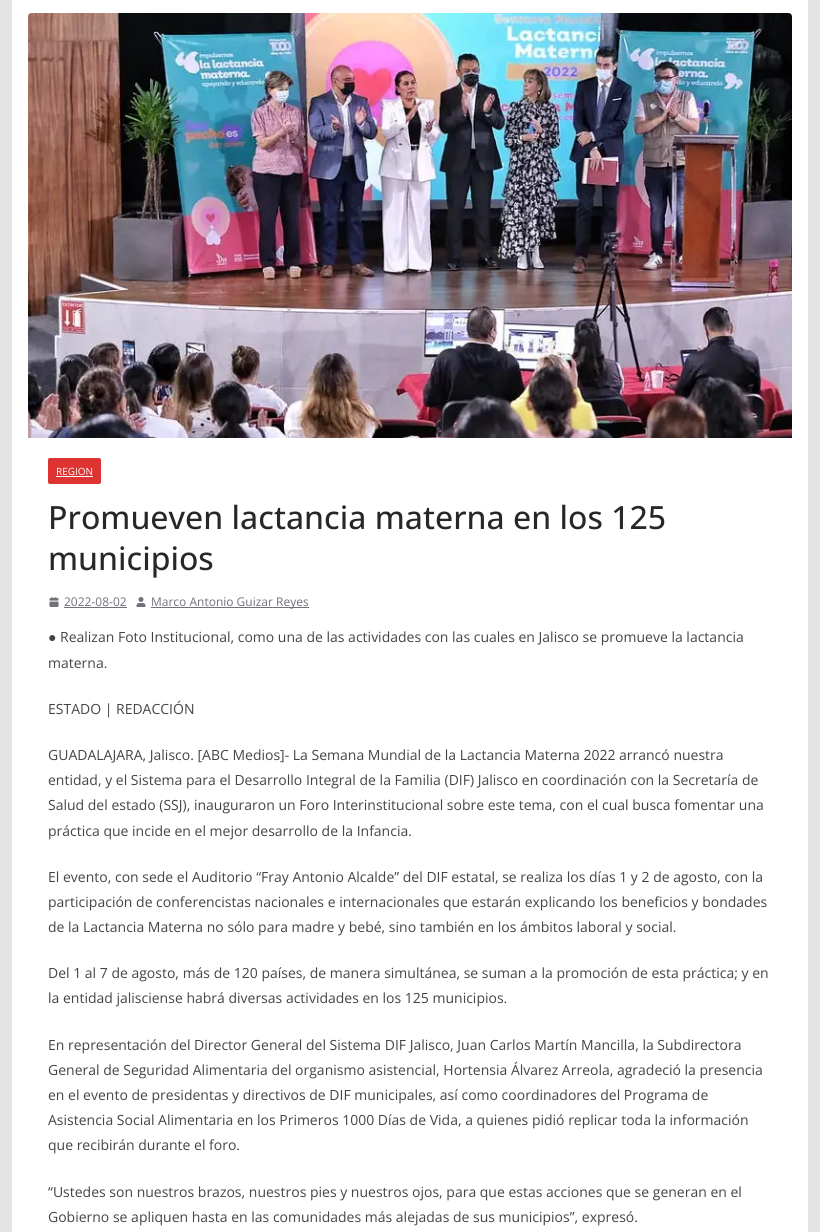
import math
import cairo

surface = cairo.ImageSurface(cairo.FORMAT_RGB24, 820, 1232)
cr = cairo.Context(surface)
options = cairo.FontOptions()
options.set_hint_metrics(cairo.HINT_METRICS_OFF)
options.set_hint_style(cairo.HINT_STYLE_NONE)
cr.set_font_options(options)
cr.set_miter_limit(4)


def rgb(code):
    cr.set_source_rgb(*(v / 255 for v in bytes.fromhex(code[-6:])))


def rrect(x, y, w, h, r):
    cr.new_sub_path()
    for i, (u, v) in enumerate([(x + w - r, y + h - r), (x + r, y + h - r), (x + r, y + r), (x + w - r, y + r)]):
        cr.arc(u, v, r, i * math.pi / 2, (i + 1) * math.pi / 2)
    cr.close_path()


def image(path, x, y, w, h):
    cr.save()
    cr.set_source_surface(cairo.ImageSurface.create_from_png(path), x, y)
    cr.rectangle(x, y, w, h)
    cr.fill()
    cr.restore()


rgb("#e4e4e7")
cr.paint()
rgb("#ffffff")
cr.rectangle(12, 0, 796, 1232)
cr.fill()
image("img/1.png", 28, 13, 764, 425)
rgb("#dd3333")
rrect(48, 458, 53, 26, 2)
cr.fill()
rgb("#ffffff")
cr.rectangle(56, 476, 37, 1)
cr.fill()
image("img/2.png", 49, 597, 10, 10)
rgb("#71717a")
cr.rectangle(64, 607, 63, 1)
cr.fill()
image("img/3.png", 136, 597, 10, 10)
cr.rectangle(151, 607, 158, 1)
cr.fill()
cr.select_font_face("Open Sans")
cr.set_font_size(10)
rgb("#ffffff")
cr.move_to(56, 475)
cr.show_text("REGION")
cr.select_font_face("Open Sans Medium")
cr.set_font_size(32)
rgb("#27272a")
cr.move_to(48, 529)
cr.show_text("Promueven lactancia materna en los 125")
cr.move_to(48, 570)
cr.show_text("municipios")
cr.select_font_face("Open Sans")
cr.set_font_size(12)
rgb("#71717a")
cr.move_to(64, 606)
cr.show_text("2022-08-02")
cr.move_to(151, 606)
cr.show_text("Marco Antonio Guizar Reyes")
cr.select_font_face("Liberation Serif")
cr.set_font_size(14)
rgb("#444444")
cr.move_to(48, 642)
cr.show_text("●")
cr.select_font_face("Open Sans")
for x, y, s in [
    (60, 642, "Realizan Foto Institucional, como una de las actividades con las cuales en Jalisco se promueve la lactancia"),
    (48, 668, "materna."),
    (48, 714, "ESTADO | REDACCIÓN"),
    (48, 760, "GUADALAJARA, Jalisco. [ABC Medios]- La Semana Mundial de la Lactancia Materna 2022 arrancó nuestra"),
    (48, 785, "entidad, y el Sistema para el Desarrollo Integral de la Familia (DIF) Jalisco en coordinación con la Secretaría de"),
    (48, 810, "Salud del estado (SSJ), inauguraron un Foro Interinstitucional sobre este tema, con el cual busca fomentar una"),
    (48, 836, "práctica que incide en el mejor desarrollo de la Infancia."),
    (48, 882, "El evento, con sede el Auditorio “Fray Antonio Alcalde” del DIF estatal, se realiza los días 1 y 2 de agosto, con la"),
    (48, 907, "participación de conferencistas nacionales e internacionales que estarán explicando los beneficios y bondades"),
    (48, 932, "de la Lactancia Materna no sólo para madre y bebé, sino también en los ámbitos laboral y social."),
    (48, 978, "Del 1 al 7 de agosto, más de 120 países, de manera simultánea, se suman a la promoción de esta práctica; y en"),
    (48, 1003, "la entidad jalisciense habrá diversas actividades en los 125 municipios."),
    (48, 1050, "En representación del Director General del Sistema DIF Jalisco, Juan Carlos Martín Mancilla, la Subdirectora"),
    (48, 1075, "General de Seguridad Alimentaria del organismo asistencial, Hortensia Álvarez Arreola, agradeció la presencia"),
    (48, 1100, "en el evento de presidentas y directivos de DIF municipales, así como coordinadores del Programa de"),
    (48, 1125, "Asistencia Social Alimentaria en los Primeros 1000 Días de Vida, a quienes pidió replicar toda la información"),
    (48, 1150, "que recibirán durante el foro."),
    (48, 1197, "“Ustedes son nuestros brazos, nuestros pies y nuestros ojos, para que estas acciones que se generan en el"),
    (48, 1222, "Gobierno se apliquen hasta en las comunidades más alejadas de sus municipios”, expresó."),
]:
    cr.move_to(x, y)
    cr.show_text(s)
surface.write_to_png("page.png")
